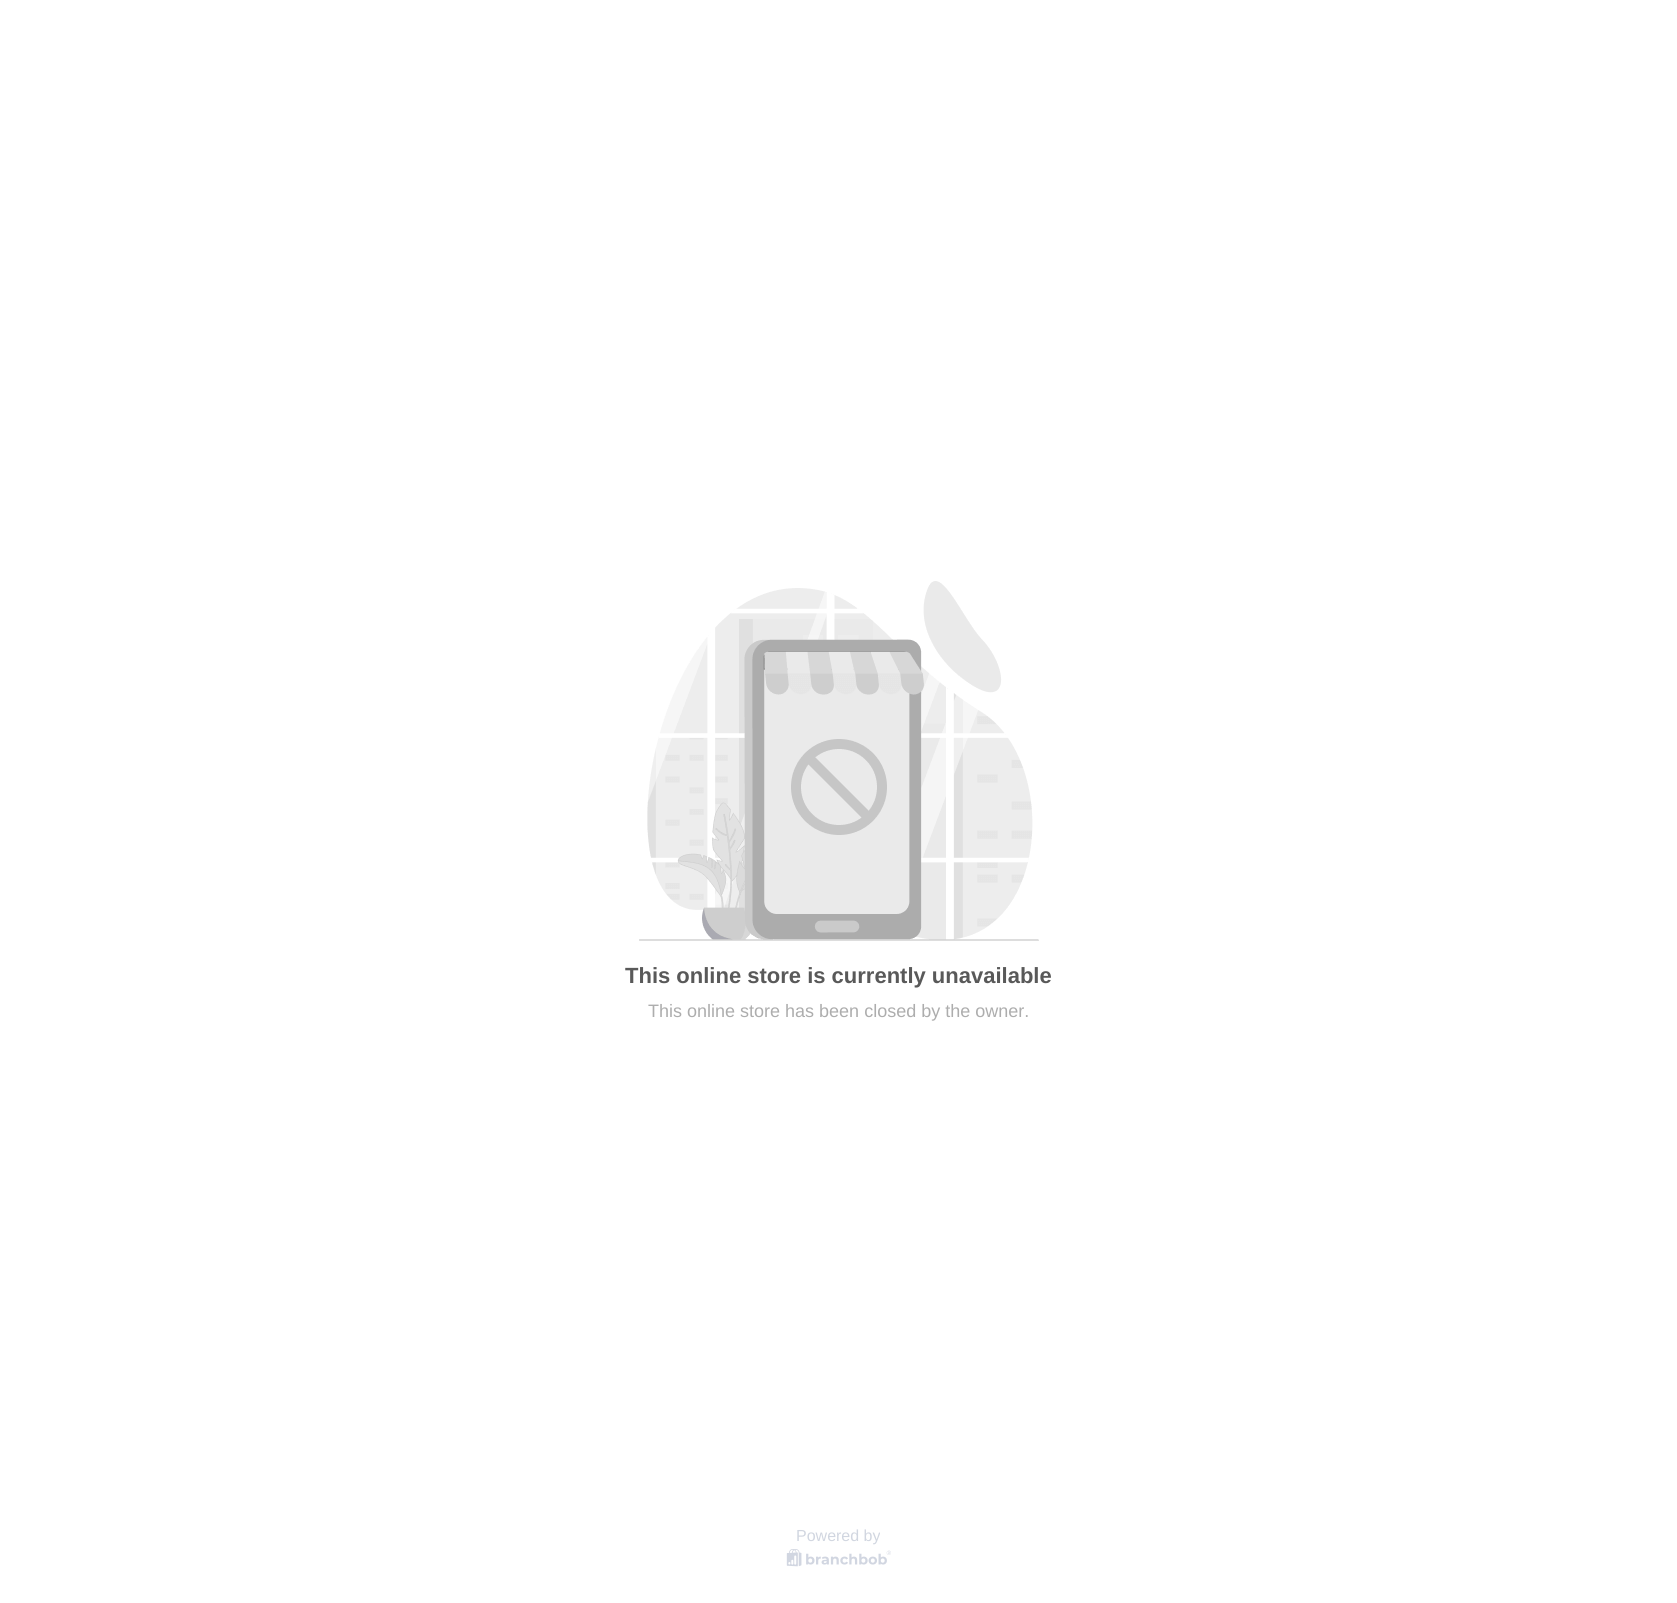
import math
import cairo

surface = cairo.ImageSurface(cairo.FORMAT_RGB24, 1677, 1603)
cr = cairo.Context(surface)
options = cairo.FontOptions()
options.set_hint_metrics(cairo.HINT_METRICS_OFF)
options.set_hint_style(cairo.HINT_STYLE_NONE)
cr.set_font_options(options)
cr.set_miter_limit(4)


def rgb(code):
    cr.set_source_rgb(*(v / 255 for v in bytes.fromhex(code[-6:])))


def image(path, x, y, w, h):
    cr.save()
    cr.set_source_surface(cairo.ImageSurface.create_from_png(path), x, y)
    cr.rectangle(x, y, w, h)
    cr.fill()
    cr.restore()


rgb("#ffffff")
cr.paint()
image("img/1.png", 639, 581, 400, 360)
image("img/2.png", 786, 1549, 105, 18)
cr.select_font_face("Liberation Sans", cairo.FONT_SLANT_NORMAL, cairo.FONT_WEIGHT_BOLD)
cr.set_font_size(22)
rgb("#595959")
cr.move_to(625, 983)
cr.show_text("This online store is currently unavailable")
cr.select_font_face("Liberation Sans")
cr.set_font_size(18)
rgb("#adadad")
cr.move_to(648, 1017)
cr.show_text("This online store has been closed by the owner.")
cr.set_font_size(16)
rgb("#d1d6e0")
cr.move_to(796, 1541)
cr.show_text("Powered by")
surface.write_to_png("page.png")
